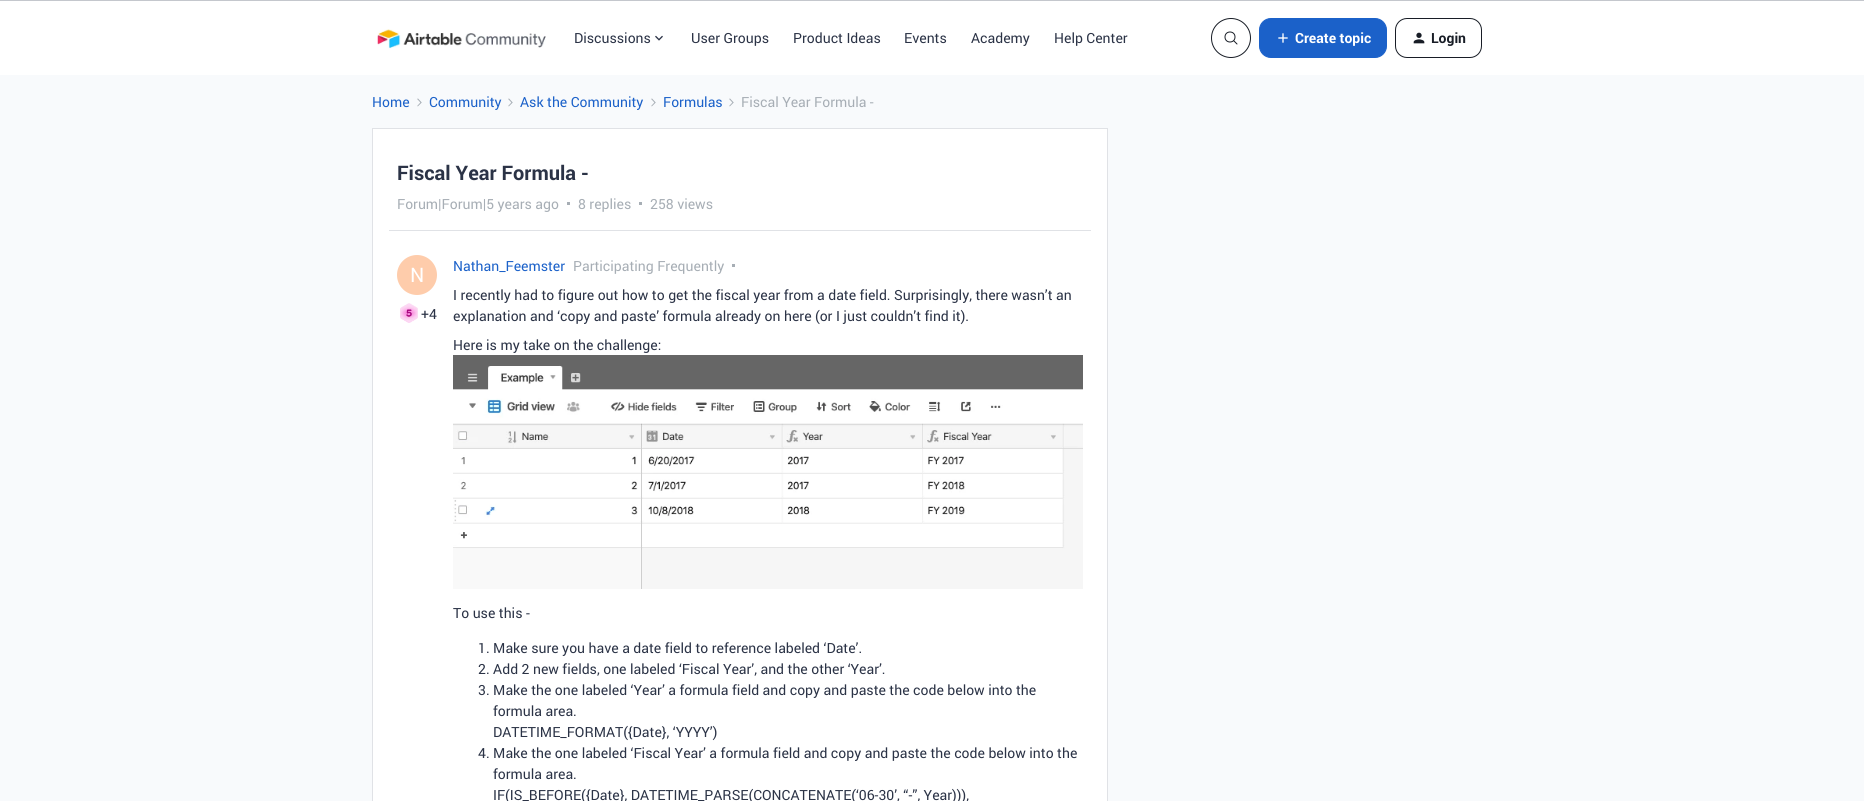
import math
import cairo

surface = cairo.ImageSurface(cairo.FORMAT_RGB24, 1864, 801)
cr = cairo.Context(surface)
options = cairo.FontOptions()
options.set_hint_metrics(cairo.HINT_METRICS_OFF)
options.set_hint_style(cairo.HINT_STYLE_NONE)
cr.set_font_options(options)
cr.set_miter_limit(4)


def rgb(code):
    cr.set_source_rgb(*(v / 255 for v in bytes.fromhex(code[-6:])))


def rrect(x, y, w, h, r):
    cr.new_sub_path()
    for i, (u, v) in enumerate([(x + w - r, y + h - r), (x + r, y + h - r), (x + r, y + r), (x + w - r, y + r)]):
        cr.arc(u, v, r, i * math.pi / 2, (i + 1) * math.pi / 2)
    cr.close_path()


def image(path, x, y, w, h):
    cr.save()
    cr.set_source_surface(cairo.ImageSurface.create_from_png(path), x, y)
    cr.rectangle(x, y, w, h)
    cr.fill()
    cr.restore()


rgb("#f8fafc")
cr.paint()
rgb("#ffffff")
cr.rectangle(0, 1, 1864, 74)
cr.fill()
rgb("#c4c7cd")
cr.rectangle(0, 0, 1864, 1)
cr.fill()
image("img/1.png", 377, 29, 169, 20)
image("img/2.png", 655, 35, 8, 6)
cr.arc(1231, 38, 19.5, 0, 2 * math.pi)
rgb("#181d26")
cr.set_line_width(1)
cr.stroke()
cr.arc(1230, 37, 5, 0, 2 * math.pi)
cr.stroke()
cr.new_path()
cr.move_to(1234, 41)
cr.line_to(1237, 44)
cr.set_line_cap(cairo.LINE_CAP_ROUND)
cr.stroke()
rgb("#1b61c9")
rrect(1259.5, 18.5, 127, 39, 11.5)
cr.fill_preserve()
cr.set_line_cap(cairo.LINE_CAP_BUTT)
cr.stroke()
image("img/3.png", 1278, 33, 10, 10)
rrect(1395.5, 18.5, 86, 39, 11.5)
rgb("#181d26")
cr.stroke()
image("img/4.png", 1413, 32, 12, 12)
image("img/5.png", 417, 98, 5, 9)
image("img/5.png", 508, 98, 5, 9)
image("img/5.png", 651, 98, 5, 9)
image("img/5.png", 729, 98, 5, 9)
rgb("#ffffff")
cr.rectangle(372.5, 128.5, 735, 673)
cr.fill_preserve()
rgb("#e0e2e6")
cr.stroke()
for x, y, w, h, color in [
    (567, 202, 3, 3, "#a7aeb5"),
    (639, 202, 3, 3, "#a7aeb5"),
    (389, 230, 702, 1, "#e0e2e6"),
]:
    rgb(color)
    cr.rectangle(x, y, w, h)
    cr.fill()
rgb("#feccab")
cr.arc(417, 275, 20, 0, 2 * math.pi)
cr.fill()
image("img/6.png", 400, 303, 18, 20)
rgb("#a7aeb5")
cr.rectangle(732, 264, 3, 3)
cr.fill()
image("img/7.png", 453, 355, 630, 234)
cr.select_font_face("Roboto")
cr.set_font_size(14)
rgb("#2b3346")
for x, y, s in [
    (574, 43, "Discussions"),
    (691, 43, "User Groups"),
    (793, 43, "Product Ideas"),
    (904, 43, "Events"),
    (971, 43, "Academy"),
    (1054, 43, "Help Center"),
]:
    cr.move_to(x, y)
    cr.show_text(s)
cr.select_font_face("Roboto", cairo.FONT_SLANT_NORMAL, cairo.FONT_WEIGHT_BOLD)
rgb("#ffffff")
cr.move_to(1295, 43)
cr.show_text("Create topic")
rgb("#181d26")
cr.move_to(1431, 43)
cr.show_text("Login")
cr.select_font_face("Roboto")
rgb("#1b61c9")
for x, y, s in [
    (372, 107, "Home"),
    (429, 107, "Community"),
    (520, 107, "Ask the Community"),
    (663, 107, "Formulas"),
]:
    cr.move_to(x, y)
    cr.show_text(s)
rgb("#a7aeb5")
cr.move_to(741, 107)
cr.show_text("Fiscal Year Formula -")
cr.select_font_face("Roboto", cairo.FONT_SLANT_NORMAL, cairo.FONT_WEIGHT_BOLD)
cr.set_font_size(20)
rgb("#2b3346")
cr.move_to(397, 180)
cr.show_text("Fiscal Year Formula -")
cr.select_font_face("Roboto")
cr.set_font_size(14)
rgb("#a7aeb5")
for x, y, s in [
    (397, 209, "Forum|Forum|5 years ago"),
    (578, 209, "8 replies"),
    (650, 209, "258 views"),
]:
    cr.move_to(x, y)
    cr.show_text(s)
cr.set_font_size(20)
rgb("#ffffff")
cr.move_to(410, 282)
cr.show_text("N")
cr.set_font_size(14)
rgb("#2b3346")
cr.move_to(421, 319)
cr.show_text("+4")
rgb("#1b61c9")
cr.move_to(453, 271)
cr.show_text("Nathan_Feemster")
rgb("#a7aeb5")
cr.move_to(573, 271)
cr.show_text("Participating Frequently")
rgb("#2b3346")
for x, y, s in [
    (453, 300, "I recently had to figure out how to get the fiscal year from a date field. Surprisingly, there wasn’t an"),
    (453, 321, "explanation and ‘copy and paste’ formula already on here (or I just couldn’t find it)."),
    (453, 350, "Here is my take on the challenge:"),
    (453, 618, "To use this -"),
    (478, 653, "1. Make sure you have a date field to reference labeled ‘Date’."),
    (478, 674, "2. Add 2 new fields, one labeled ‘Fiscal Year’, and the other ‘Year’."),
    (478, 695, "3. Make the one labeled ‘Year’ a formula field and copy and paste the code below into the"),
    (493, 716, "formula area."),
    (493, 737, "DATETIME_FORMAT({Date}, ‘YYYY’)"),
    (478, 758, "4. Make the one labeled ‘Fiscal Year’ a formula field and copy and paste the code below into the"),
    (493, 779, "formula area."),
    (493, 800, "IF(IS_BEFORE({Date}, DATETIME_PARSE(CONCATENATE(‘06-30’, “-”, Year))),"),
]:
    cr.move_to(x, y)
    cr.show_text(s)
surface.write_to_png("page.png")
